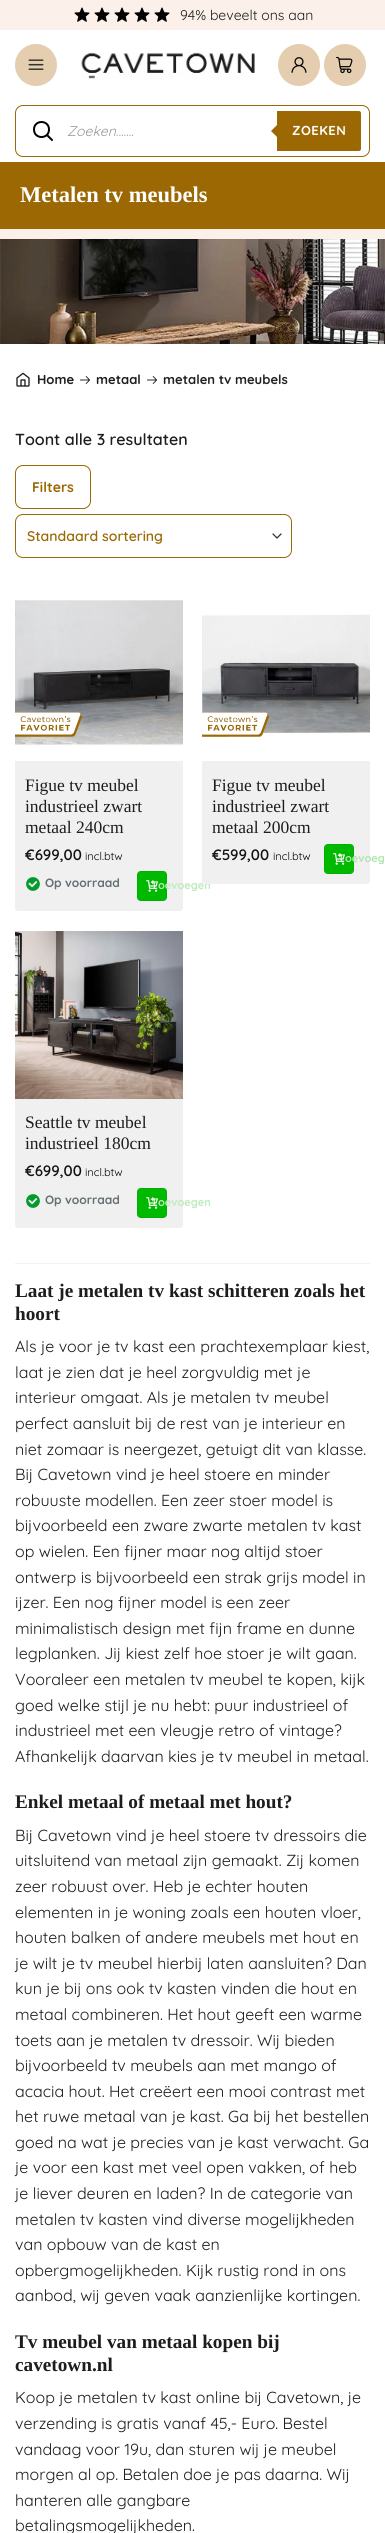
import math
import cairo

surface = cairo.ImageSurface(cairo.FORMAT_RGB24, 385, 2533)
cr = cairo.Context(surface)
options = cairo.FontOptions()
options.set_hint_metrics(cairo.HINT_METRICS_OFF)
options.set_hint_style(cairo.HINT_STYLE_NONE)
cr.set_font_options(options)
cr.set_miter_limit(4)


def rgb(code):
    cr.set_source_rgb(*(v / 255 for v in bytes.fromhex(code[-6:])))


def tracked(x, y, s, letter, word):
    cr.move_to(x, y)
    for ch in s:
        cr.show_text(ch)
        cr.rel_move_to(letter + word * (ch == ' '), 0)


def rrect(x, y, w, h, r):
    cr.new_sub_path()
    for i, (u, v) in enumerate([(x + w - r, y + h - r), (x + r, y + h - r), (x + r, y + r), (x + w - r, y + r)]):
        cr.arc(u, v, r, i * math.pi / 2, (i + 1) * math.pi / 2)
    cr.close_path()


def image(path, x, y, w, h):
    cr.save()
    cr.set_source_surface(cairo.ImageSurface.create_from_png(path), x, y)
    cr.rectangle(x, y, w, h)
    cr.fill()
    cr.restore()


rgb("#ffffff")
cr.paint()
rgb("#fbf1ea")
cr.rectangle(0, 0, 385, 30)
cr.fill()
image("img/1.png", 74, 7, 16, 15)
image("img/1.png", 94, 7, 16, 15)
image("img/1.png", 114, 7, 16, 15)
image("img/1.png", 134, 7, 16, 15)
image("img/1.png", 154, 7, 16, 15)
rgb("#e5cdb0")
cr.arc(36, 65, 21, 0, 2 * math.pi)
cr.fill()
image("img/2.png", 28, 59, 16, 11)
image("img/3.png", 81, 52, 174, 27)
cr.arc(299, 65, 21, 0, 2 * math.pi)
cr.fill()
image("img/4.png", 291, 57, 16, 16)
cr.arc(345, 65, 21, 0, 2 * math.pi)
cr.fill()
image("img/5.png", 336, 56, 17, 18)
rrect(15.5, 105.5, 354, 51, 7.5)
rgb("#9b6803")
cr.set_line_width(1)
cr.stroke()
cr.new_path()
cr.move_to(47, 135)
cr.line_to(52, 140)
cr.move_to(49, 129.5)
cr.curve_to(49, 139.5, 34, 139.5, 34, 129.5)
cr.curve_to(34, 119.5, 49, 119.5, 49, 129.5)
cr.close_path()
rgb("#000000")
cr.set_line_width(2)
cr.set_line_cap(cairo.LINE_CAP_ROUND)
cr.set_line_join(cairo.LINE_JOIN_ROUND)
cr.stroke()
rgb("#9b6803")
cr.new_path()
cr.move_to(277, 111)
cr.line_to(359, 111)
cr.curve_to(360, 111, 361, 112, 361, 113)
cr.line_to(361, 149)
cr.curve_to(361, 150, 360, 151, 359, 151)
cr.line_to(277, 151)
cr.close_path()
cr.fill()
cr.new_path()
cr.move_to(279, 123)
cr.line_to(279, 139)
cr.line_to(271, 131)
cr.close_path()
cr.fill()
cr.rectangle(0, 162, 385, 67)
cr.fill()
rgb("#fbf1ea")
cr.rectangle(0, 229, 385, 10)
cr.fill()
image("img/6.png", 0, 239, 385, 105)
image("img/7.png", 16, 372, 14, 15)
image("img/8.png", 80, 376, 10, 8)
image("img/8.png", 147, 376, 10, 8)
rrect(15.5, 465.5, 75, 43, 7.5)
rgb("#9b6803")
cr.set_line_width(1)
cr.set_line_cap(cairo.LINE_CAP_BUTT)
cr.set_line_join(cairo.LINE_JOIN_MITER)
cr.stroke()
cr.new_path()
cr.move_to(273, 534)
cr.line_to(277, 538)
cr.line_to(281, 534)
rgb("#333333")
cr.set_line_width(1.3)
cr.set_line_cap(cairo.LINE_CAP_ROUND)
cr.set_line_join(cairo.LINE_JOIN_ROUND)
cr.stroke()
rrect(15.5, 514.5, 276, 43, 7.5)
rgb("#9b6803")
cr.set_line_width(1)
cr.set_line_cap(cairo.LINE_CAP_BUTT)
cr.set_line_join(cairo.LINE_JOIN_MITER)
cr.stroke()
rgb("#f0f0f0")
rrect(15, 593, 168, 318, 3)
cr.fill()
image("img/9.png", 15, 593, 168, 168)
image("img/10.png", 15, 712, 67, 25)
image("img/11.png", 26, 877, 14, 14)
rgb("#00b900")
rrect(137, 871, 30, 30, 4)
cr.fill()
cr.rectangle(137.5, 871.5, 29, 29)
cr.set_source_rgba(0, 0, 0, 0.05)
cr.stroke()
rgb("#f0f0f0")
rrect(15, 931, 168, 297, 3)
cr.fill()
image("img/16.png", 15, 931, 168, 168)
image("img/11.png", 26, 1194, 14, 14)
rgb("#00b900")
rrect(137, 1188, 30, 30, 4)
cr.fill()
cr.rectangle(137.5, 1188.5, 29, 29)
cr.set_source_rgba(0, 0, 0, 0.05)
cr.stroke()
rgb("#f2f2f2")
cr.rectangle(15, 1263, 355, 1)
cr.fill()
cr.select_font_face("Quicksand")
cr.set_font_size(14)
rgb("#1d1d1b")
cr.move_to(180, 20)
cr.show_text("94% beveelt ons aan")
cr.select_font_face("Quicksand", cairo.FONT_SLANT_ITALIC)
rgb("#999999")
cr.move_to(67, 136)
cr.show_text("Zoeken.......")
cr.select_font_face("Quicksand", cairo.FONT_SLANT_NORMAL, cairo.FONT_WEIGHT_BOLD)
cr.set_font_size(13)
rgb("#ffffff")
tracked(292, 135, "ZOEKEN", 0.5, 0)
cr.select_font_face("Tinos", cairo.FONT_SLANT_NORMAL, cairo.FONT_WEIGHT_BOLD)
cr.set_font_size(22.5)
cr.move_to(20, 202)
cr.show_text("Metalen tv meubels")
cr.select_font_face("Quicksand", cairo.FONT_SLANT_NORMAL, cairo.FONT_WEIGHT_BOLD)
cr.set_font_size(13)
rgb("#1d1d1b")
cr.move_to(37, 384)
cr.show_text("Home")
cr.move_to(96, 384)
cr.show_text("metaal")
rgb("#222222")
cr.move_to(163, 384)
cr.show_text("metalen tv meubels")
cr.select_font_face("Quicksand SemiBold")
cr.set_font_size(16)
rgb("#1d1d1b")
cr.move_to(15, 445)
cr.show_text("Toont alle 3 resultaten")
cr.select_font_face("Quicksand", cairo.FONT_SLANT_NORMAL, cairo.FONT_WEIGHT_BOLD)
cr.set_font_size(14)
rgb("#9b6803")
cr.move_to(32, 492)
cr.show_text("Filters")
cr.select_font_face("Quicksand SemiBold")
cr.move_to(27, 541)
cr.show_text("Standaard sortering")
cr.select_font_face("Tinos")
cr.set_font_size(17.5)
rgb("#1d1d1b")
for x, y, s in [
    (25, 791, "Figue tv meubel"),
    (25, 812, "industrieel zwart"),
    (25, 833, "metaal 240cm"),
]:
    cr.move_to(x, y)
    cr.show_text(s)
cr.select_font_face("Quicksand SemiBold")
cr.set_font_size(15)
rgb("#111111")
cr.move_to(25, 860)
cr.show_text("€699,00")
cr.select_font_face("Quicksand")
cr.set_font_size(11)
rgb("#000000")
cr.move_to(85, 860)
cr.show_text("incl.btw")
cr.select_font_face("Quicksand", cairo.FONT_SLANT_NORMAL, cairo.FONT_WEIGHT_BOLD)
cr.set_font_size(12)
rgb("#636f73")
cr.move_to(45, 887)
cr.show_text("Op voorraad")
cr.set_font_size(11)
rgb("#beeabe")
cr.move_to(151, 889)
cr.show_text("Toevoegen")
image("img/12.png", 146, 880, 12, 12)
rgb("#f0f0f0")
rrect(202, 593, 168, 291, 3)
cr.fill()
image("img/13.png", 202, 593, 168, 168)
image("img/14.png", 202, 712, 67, 25)
cr.select_font_face("Tinos")
cr.set_font_size(17.5)
rgb("#1d1d1b")
for x, y, s in [
    (212, 791, "Figue tv meubel"),
    (212, 812, "industrieel zwart"),
    (212, 833, "metaal 200cm"),
]:
    cr.move_to(x, y)
    cr.show_text(s)
cr.select_font_face("Quicksand SemiBold")
cr.set_font_size(15)
rgb("#111111")
cr.move_to(212, 860)
cr.show_text("€599,00")
cr.select_font_face("Quicksand")
cr.set_font_size(11)
rgb("#000000")
cr.move_to(273, 860)
cr.show_text("incl.btw")
rgb("#00b900")
rrect(324, 844, 30, 30, 4)
cr.fill()
cr.rectangle(324.5, 844.5, 29, 29)
cr.set_source_rgba(0, 0, 0, 0.05)
cr.stroke()
cr.select_font_face("Quicksand", cairo.FONT_SLANT_NORMAL, cairo.FONT_WEIGHT_BOLD)
rgb("#ade5ad")
cr.move_to(338, 862)
cr.show_text("Toevoeg")
image("img/15.png", 333, 853, 12, 12)
cr.select_font_face("Tinos")
cr.set_font_size(17.5)
rgb("#1d1d1b")
cr.move_to(25, 1128)
cr.show_text("Seattle tv meubel")
cr.move_to(25, 1149)
cr.show_text("industrieel 180cm")
cr.select_font_face("Quicksand SemiBold")
cr.set_font_size(15)
rgb("#111111")
cr.move_to(25, 1176)
cr.show_text("€699,00")
cr.select_font_face("Quicksand")
cr.set_font_size(11)
rgb("#000000")
cr.move_to(85, 1176)
cr.show_text("incl.btw")
cr.select_font_face("Quicksand", cairo.FONT_SLANT_NORMAL, cairo.FONT_WEIGHT_BOLD)
cr.set_font_size(12)
rgb("#636f73")
cr.move_to(45, 1204)
cr.show_text("Op voorraad")
cr.set_font_size(11)
rgb("#beeabe")
cr.move_to(151, 1206)
cr.show_text("Toevoegen")
image("img/12.png", 146, 1197, 12, 12)
cr.select_font_face("Tinos", cairo.FONT_SLANT_NORMAL, cairo.FONT_WEIGHT_BOLD)
cr.set_font_size(19.25)
rgb("#1d1d1b")
cr.move_to(15, 1297)
cr.show_text("Laat je metalen tv kast schitteren zoals het")
cr.move_to(15, 1320)
cr.show_text("hoort")
cr.select_font_face("Quicksand")
cr.set_font_size(16)
for x, y, s in [
    (15, 1352, "Als je voor je tv kast een prachtexemplaar kiest,"),
    (15, 1378, "laat je zien dat je heel zorgvuldig met je"),
    (15, 1403, "interieur omgaat. Als je metalen tv meubel"),
    (15, 1429, "perfect aansluit bij de rest van je interieur en"),
    (15, 1455, "niet zomaar is neergezet, getuigt dit van klasse."),
    (15, 1480, "Bij Cavetown vind je heel stoere en minder"),
    (15, 1506, "robuuste modellen. Een zeer stoer model is"),
    (15, 1531, "bijvoorbeeld een zware zwarte metalen tv kast"),
    (15, 1557, "op wielen. Een fijner maar nog altijd stoer"),
    (15, 1583, "ontwerp is bijvoorbeeld een strak grijs model in"),
    (15, 1608, "ijzer. Een nog fijner model is een zeer"),
    (15, 1634, "minimalistisch design met fijn frame en dunne"),
    (15, 1659, "legplanken. Jij kiest zelf hoe stoer je wilt gaan."),
    (15, 1685, "Vooraleer een metalen tv meubel te kopen, kijk"),
    (15, 1711, "goed welke stijl je nu hebt: puur industrieel of"),
    (15, 1736, "industrieel met een vleugje retro of vintage?"),
    (15, 1762, "Afhankelijk daarvan kies je tv meubel in metaal."),
]:
    cr.move_to(x, y)
    cr.show_text(s)
cr.select_font_face("Tinos", cairo.FONT_SLANT_NORMAL, cairo.FONT_WEIGHT_BOLD)
cr.set_font_size(19.25)
cr.move_to(15, 1808)
cr.show_text("Enkel metaal of metaal met hout?")
cr.select_font_face("Quicksand")
cr.set_font_size(16)
for x, y, s in [
    (15, 1841, "Bij Cavetown vind je heel stoere tv dressoirs die"),
    (15, 1866, "uitsluitend van metaal zijn gemaakt. Zij komen"),
    (15, 1892, "zeer robuust over. Heb je echter houten"),
    (15, 1918, "elementen in je woning zoals een houten vloer,"),
    (15, 1943, "houten balken of andere meubels met hout en"),
    (15, 1969, "je wilt je tv meubel hierbij laten aansluiten? Dan"),
    (15, 1994, "kun je bij ons ook tv kasten vinden die hout en"),
    (15, 2020, "metaal combineren. Het hout geeft een warme"),
    (15, 2046, "toets aan je metalen tv dressoir. Wij bieden"),
    (15, 2071, "bijvoorbeeld tv meubels aan met mango of"),
    (15, 2097, "acacia hout. Het creëert een mooi contrast met"),
    (15, 2122, "het ruwe metaal van je kast. Ga bij het bestellen"),
    (15, 2148, "goed na wat je precies van je kast verwacht. Ga"),
    (15, 2173, "je voor een kast met veel open vakken, of heb"),
    (15, 2199, "je liever deuren en laden? In de categorie van"),
    (15, 2225, "metalen tv kasten vind diverse mogelijkheden"),
    (15, 2250, "van opbouw van de kast en"),
    (15, 2276, "opbergmogelijkheden. Kijk rustig rond in ons"),
    (15, 2301, "aanbod, wij geven vaak aanzienlijke kortingen."),
]:
    cr.move_to(x, y)
    cr.show_text(s)
cr.select_font_face("Tinos", cairo.FONT_SLANT_NORMAL, cairo.FONT_WEIGHT_BOLD)
cr.set_font_size(19.25)
cr.move_to(15, 2348)
cr.show_text("Tv meubel van metaal kopen bij")
cr.move_to(15, 2371)
cr.show_text("cavetown.nl")
cr.select_font_face("Quicksand")
cr.set_font_size(16)
for x, y, s in [
    (15, 2403, "Koop je metalen tv kast online bij Cavetown, je"),
    (15, 2429, "verzending is gratis vanaf 45,- Euro. Bestel"),
    (15, 2455, "vandaag voor 19u, dan sturen wij je meubel"),
    (15, 2480, "morgen al op. Betalen doe je pas daarna. Wij"),
    (15, 2506, "hanteren alle gangbare"),
    (15, 2531, "betalingsmogelijkheden."),
]:
    cr.move_to(x, y)
    cr.show_text(s)
surface.write_to_png("page.png")
